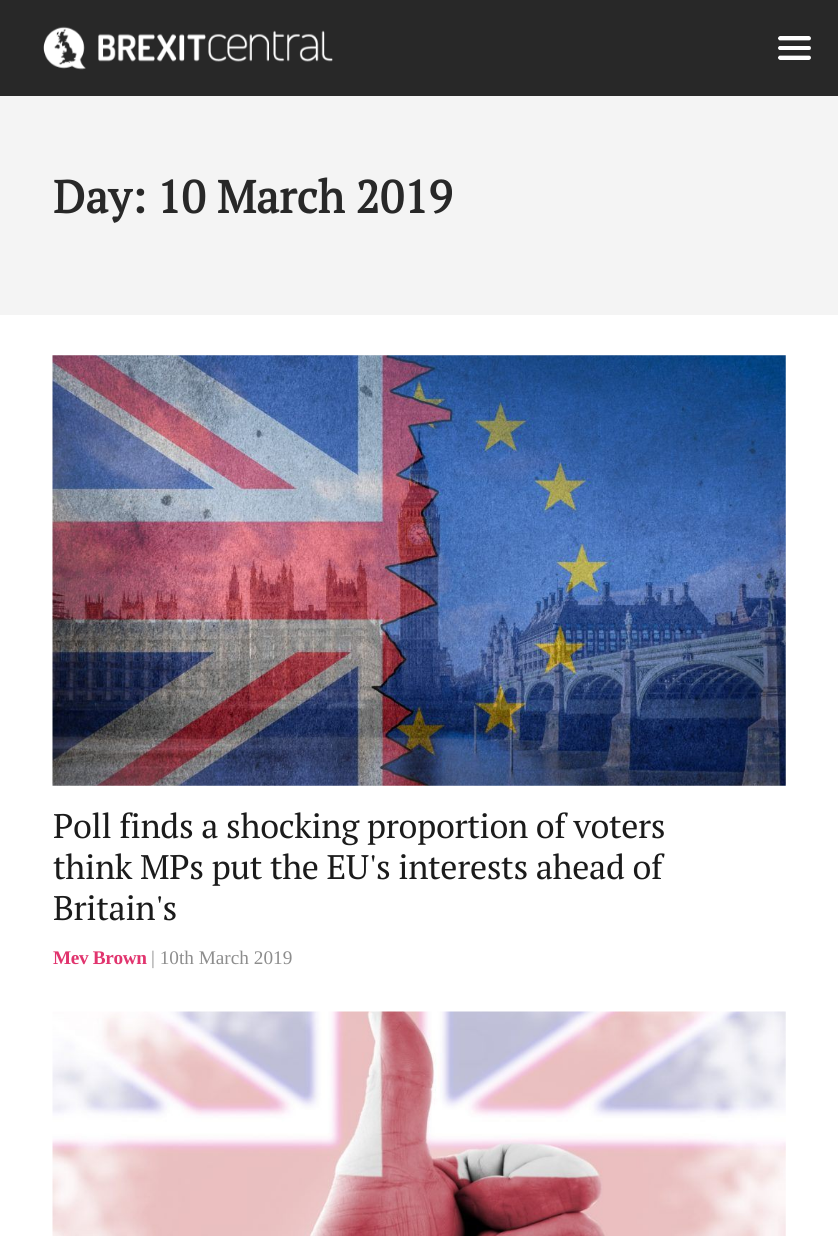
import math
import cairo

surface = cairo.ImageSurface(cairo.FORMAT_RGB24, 838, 1236)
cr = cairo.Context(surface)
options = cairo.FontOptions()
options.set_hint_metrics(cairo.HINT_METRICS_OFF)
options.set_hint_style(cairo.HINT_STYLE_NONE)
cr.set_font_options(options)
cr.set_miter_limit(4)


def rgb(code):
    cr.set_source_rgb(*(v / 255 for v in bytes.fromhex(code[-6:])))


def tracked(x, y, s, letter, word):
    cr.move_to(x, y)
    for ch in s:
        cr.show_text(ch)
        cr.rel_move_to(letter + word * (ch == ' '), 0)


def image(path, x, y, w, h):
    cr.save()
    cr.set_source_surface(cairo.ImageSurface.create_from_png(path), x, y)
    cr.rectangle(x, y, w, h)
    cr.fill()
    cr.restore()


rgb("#ffffff")
cr.paint()
rgb("#282828")
cr.rectangle(0, 0, 838, 96)
cr.fill()
image("img/1.png", 43, 26, 290, 44)
image("img/2.png", 778, 36, 33, 24)
rgb("#f4f4f4")
cr.rectangle(0, 96, 838, 219)
cr.fill()
image("img/3.png", 52, 355, 734, 431)
image("img/4.png", 52, 1011, 734, 225)
cr.select_font_face("PT Serif", cairo.FONT_SLANT_NORMAL, cairo.FONT_WEIGHT_BOLD)
cr.set_font_size(45.5)
rgb("#282828")
cr.move_to(53, 213)
cr.show_text("Day: 10 March 2019")
cr.select_font_face("PT Serif")
cr.set_font_size(34.1)
rgb("#1b1b1b")
for x, y, s in [
    (53, 838, "Poll finds a shocking proportion of voters"),
    (53, 879, "think MPs put the EU's interests ahead of"),
    (53, 920, "Britain's"),
]:
    tracked(x, y, s, -0.35, 0)
cr.select_font_face("Liberation Serif", cairo.FONT_SLANT_NORMAL, cairo.FONT_WEIGHT_BOLD)
cr.set_font_size(19.25)
rgb("#e1346e")
tracked(53, 964, "Mev Brown", -0.35, 0)
cr.select_font_face("Liberation Serif")
rgb("#8d8d8d")
cr.move_to(151, 964)
cr.show_text("| 10th March 2019")
surface.write_to_png("page.png")
